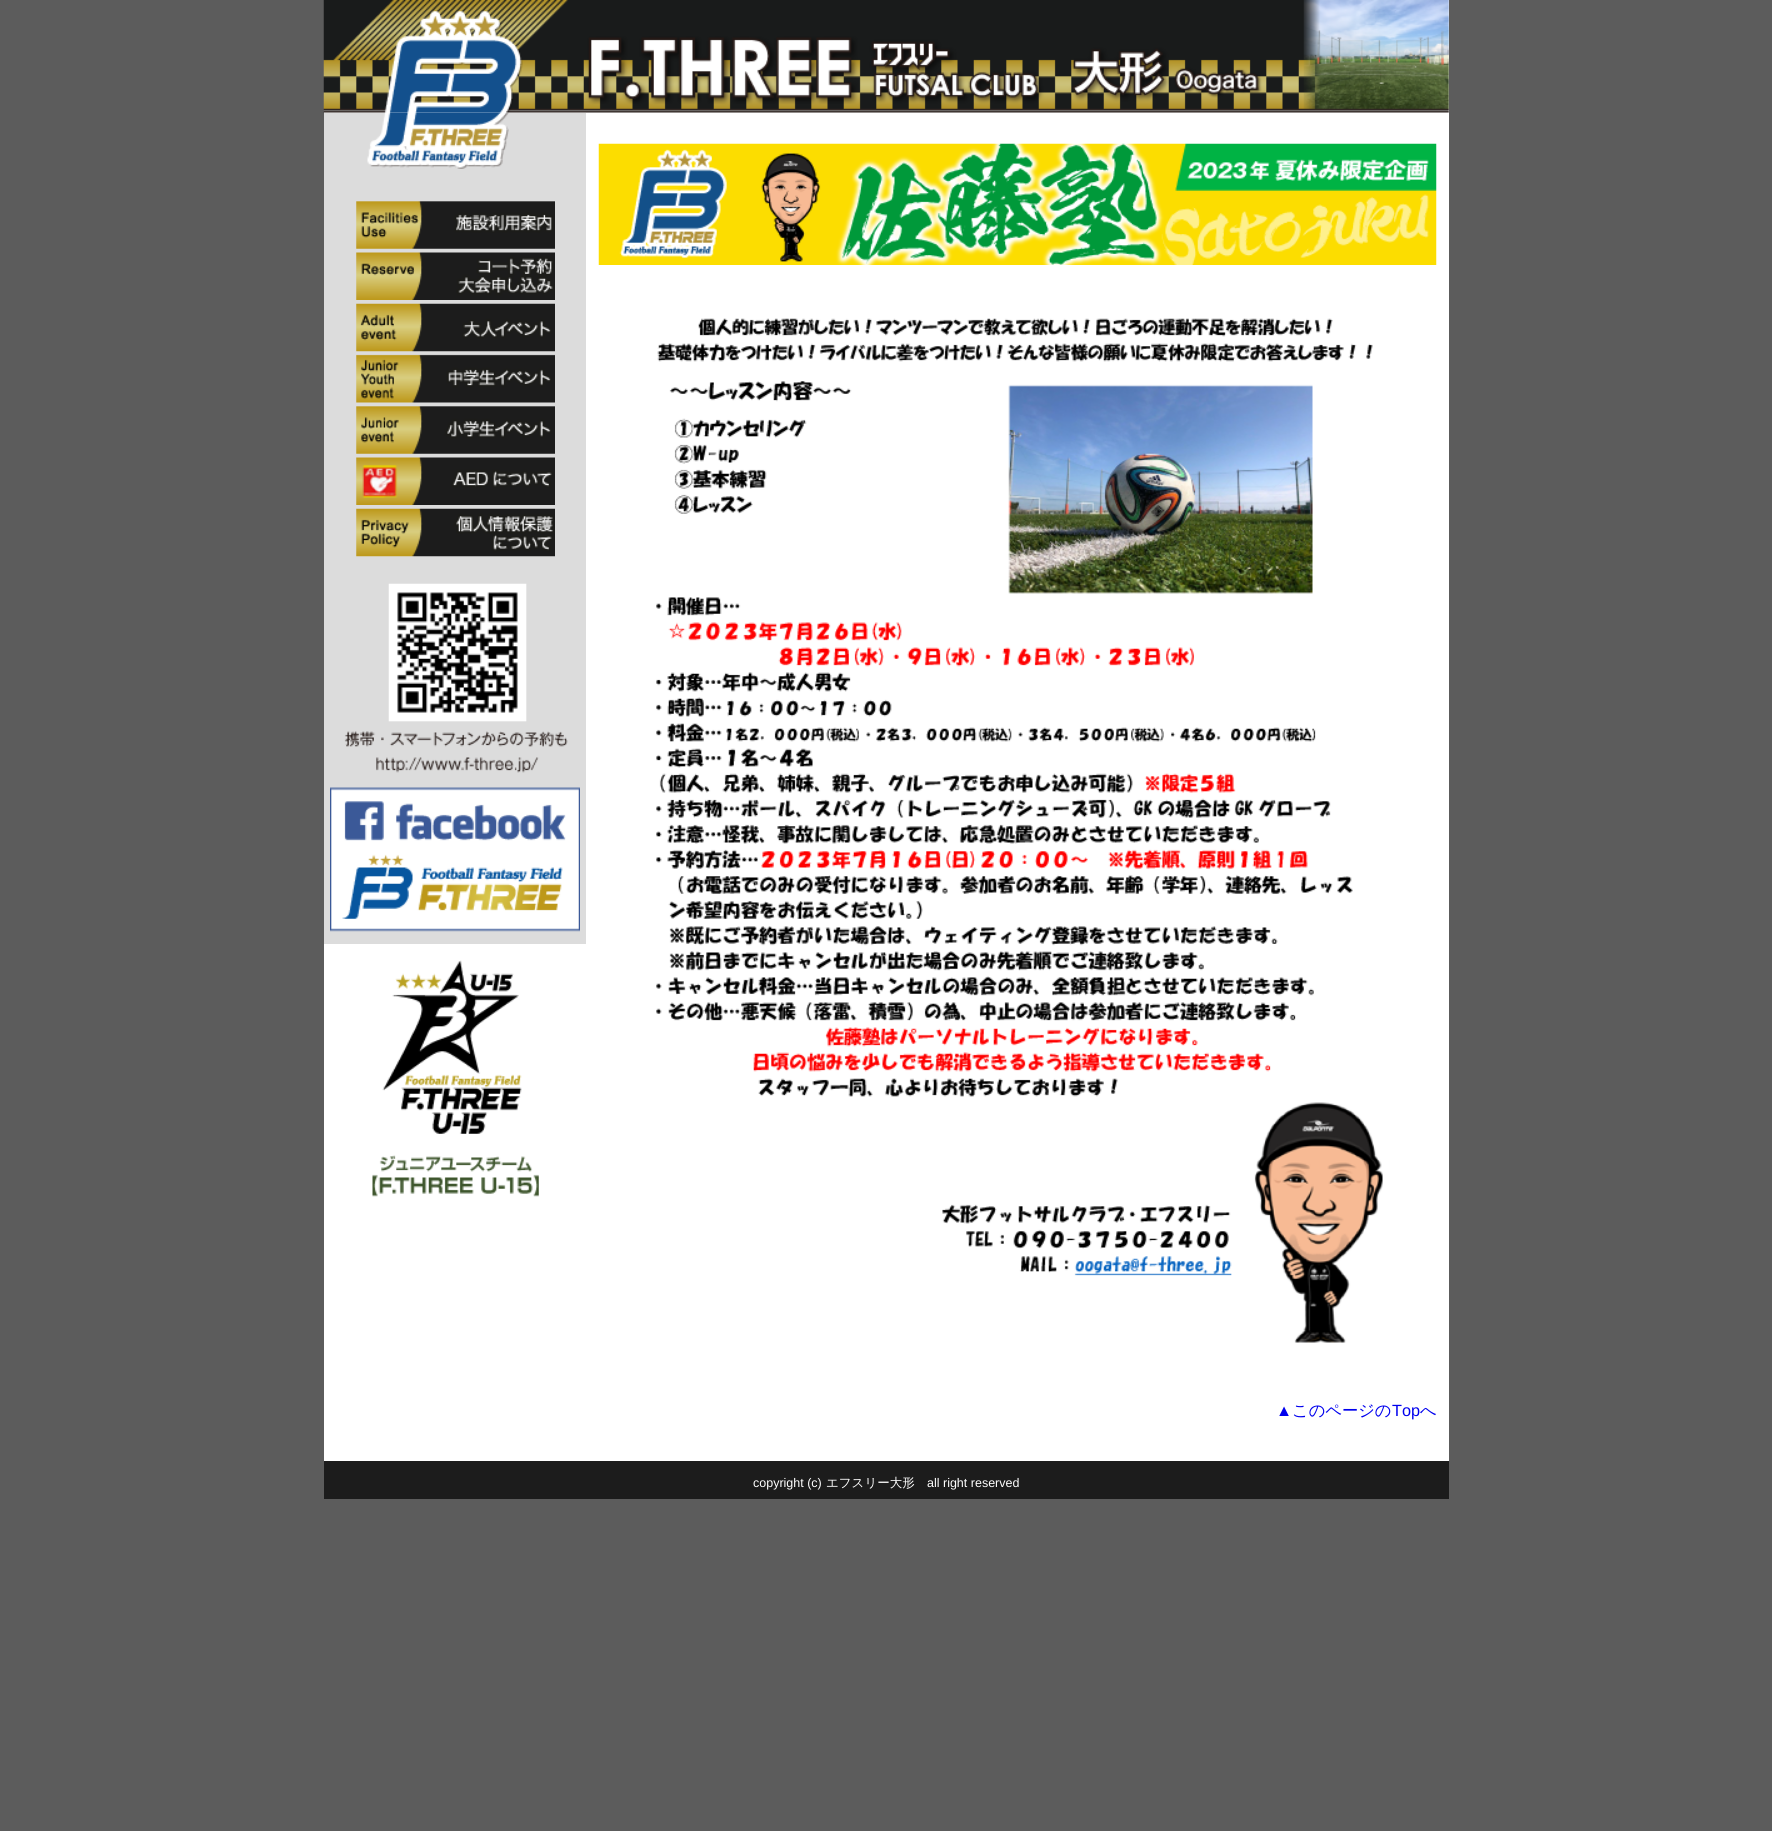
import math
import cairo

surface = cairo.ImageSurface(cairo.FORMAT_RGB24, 1772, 1831)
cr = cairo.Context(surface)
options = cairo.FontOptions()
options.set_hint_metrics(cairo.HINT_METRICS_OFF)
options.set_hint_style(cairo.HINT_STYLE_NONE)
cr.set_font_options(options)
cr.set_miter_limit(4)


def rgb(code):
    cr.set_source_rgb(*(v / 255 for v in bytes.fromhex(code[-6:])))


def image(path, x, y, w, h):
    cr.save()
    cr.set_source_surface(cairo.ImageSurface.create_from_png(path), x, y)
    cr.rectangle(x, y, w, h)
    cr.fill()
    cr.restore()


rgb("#5c5c5c")
cr.paint()
rgb("#ffffff")
cr.rectangle(324, 0, 1125, 1461)
cr.fill()
rgb("#dcdcdc")
cr.rectangle(324, 113, 262, 831)
cr.fill()
image("img/2.png", 367, 112, 142, 57)
image("img/1.png", 323, 0, 1126, 113)
image("img/3.png", 356, 201, 199, 48)
image("img/4.png", 356, 252, 199, 48)
image("img/5.png", 356, 303, 199, 49)
image("img/6.png", 356, 354, 199, 49)
image("img/7.png", 356, 406, 199, 48)
image("img/8.png", 356, 457, 199, 48)
image("img/9.png", 356, 508, 199, 49)
image("img/10.png", 344, 583, 224, 190)
image("img/11.png", 330, 787, 250, 145)
image("img/12.png", 372, 960, 167, 237)
image("img/13.png", 598, 143, 839, 122)
image("img/14.png", 656, 318, 727, 1025)
rgb("#1c1c1c")
cr.rectangle(324, 1461, 1125, 38)
cr.fill()
cr.select_font_face("Liberation Sans")
cr.set_font_size(16.25)
rgb("#0000ee")
cr.move_to(1276, 1416)
cr.show_text("▲")
cr.select_font_face("WenQuanYi Zen Hei Medium")
cr.move_to(1292, 1416)
cr.show_text("このページの")
cr.select_font_face("Liberation Sans")
cr.move_to(1392, 1416)
cr.show_text("Top")
cr.select_font_face("WenQuanYi Zen Hei Medium")
cr.move_to(1420, 1416)
cr.show_text("へ")
cr.select_font_face("Liberation Sans")
cr.set_font_size(12.5)
rgb("#ffffff")
cr.move_to(753, 1487)
cr.show_text("copyright (c)")
cr.select_font_face("WenQuanYi Zen Hei Medium")
cr.move_to(826, 1487)
cr.show_text("エフスリー大形")
cr.select_font_face("Liberation Sans")
cr.move_to(927, 1487)
cr.show_text("all right reserved")
surface.write_to_png("page.png")
